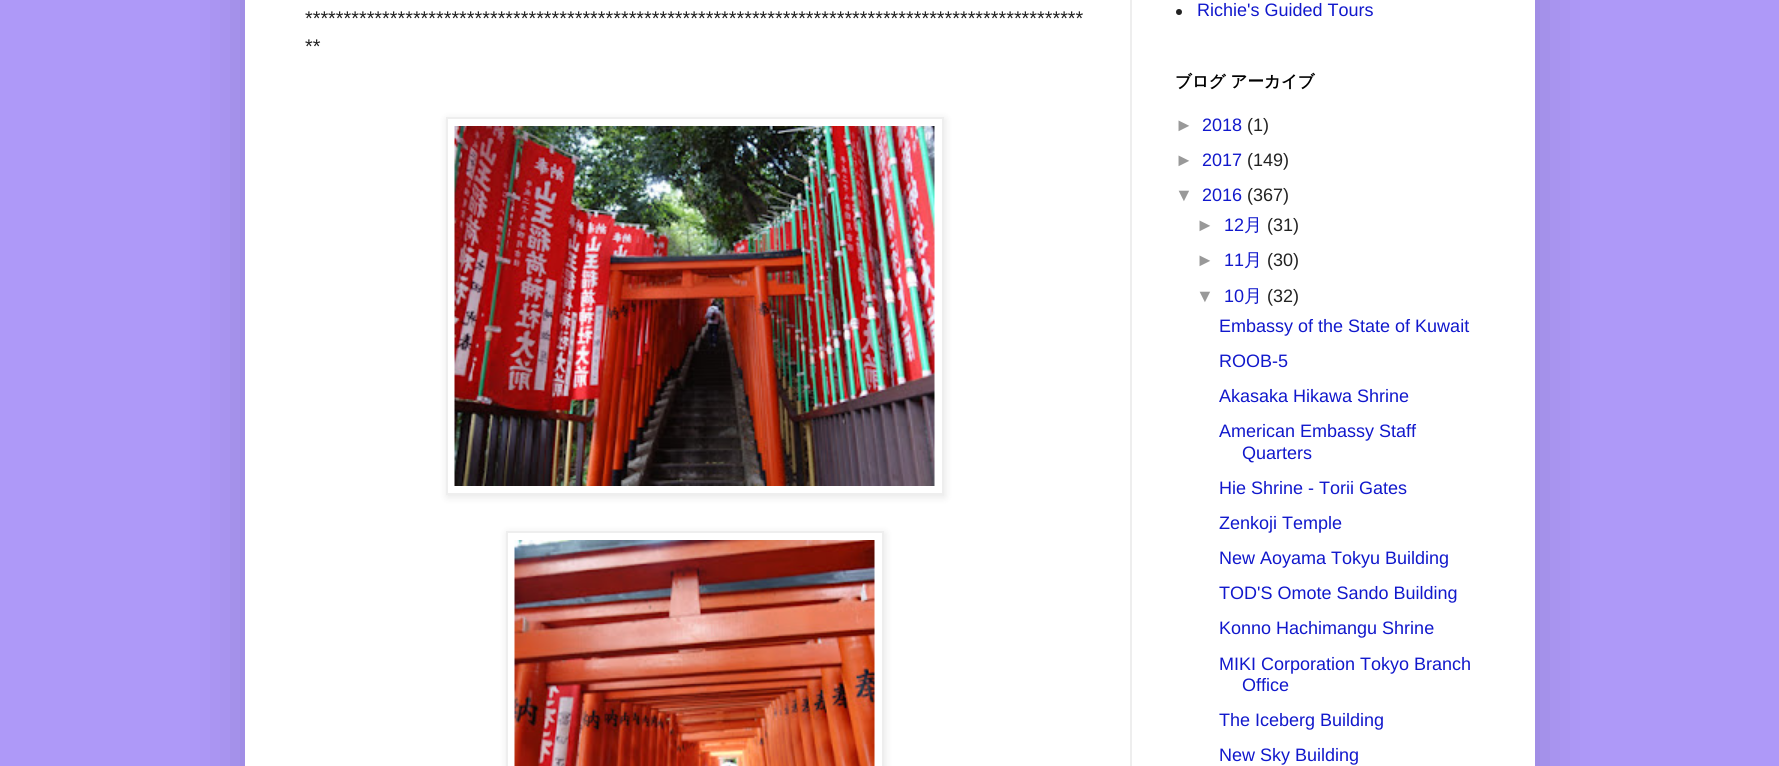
import math
import cairo

surface = cairo.ImageSurface(cairo.FORMAT_RGB24, 1779, 766)
cr = cairo.Context(surface)
options = cairo.FontOptions()
options.set_hint_metrics(cairo.HINT_METRICS_OFF)
options.set_hint_style(cairo.HINT_STYLE_NONE)
cr.set_font_options(options)
cr.set_miter_limit(4)


def rgb(code):
    cr.set_source_rgb(*(v / 255 for v in bytes.fromhex(code[-6:])))


def rrect(x, y, w, h, r):
    cr.new_sub_path()
    for i, (u, v) in enumerate([(x + w - r, y + h - r), (x + r, y + h - r), (x + r, y + r), (x + w - r, y + r)]):
        cr.arc(u, v, r, i * math.pi / 2, (i + 1) * math.pi / 2)
    cr.close_path()


def soft_shadow(x, y, w, h, r, blur, alpha):
    cr.push_group_with_content(cairo.CONTENT_ALPHA)
    cr.set_operator(cairo.OPERATOR_SOURCE)
    for i in range(15, -16, -2):
        e = blur * i / 6
        if min(w, h) + 2 * e > 0:
            cr.set_source_rgba(0, 0, 0, alpha * math.erfc((i - 1) / 8.5) / 2)
            rrect(x - e, y - e, w + 2 * e, h + 2 * e, max(0, min(r + e + blur * .6, min(w, h) / 2 + e)))
            cr.fill()
    cr.mask(cr.pop_group())


def image(path, x, y, w, h):
    cr.save()
    cr.set_source_surface(cairo.ImageSurface.create_from_png(path), x, y)
    cr.rectangle(x, y, w, h)
    cr.fill()
    cr.restore()


rgb("#ae99f8")
cr.paint()
rgb("#000000")
soft_shadow(245, -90, 1290, 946, 0, 30, 0.15)
rgb("#ffffff")
cr.rectangle(245, 0, 1290, 766)
cr.fill()
rgb("#eeeeee")
cr.rectangle(1130, 0, 2, 766)
cr.fill()
rgb("#000000")
soft_shadow(447, 119, 498, 378, 0, 4, 0.1)
rgb("#ffffff")
cr.rectangle(447, 118, 496, 376)
cr.fill_preserve()
rgb("#eeeeee")
cr.stroke()
image("img/1.png", 454, 126, 481, 360)
rgb("#000000")
soft_shadow(507, 533, 378, 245, 0, 4, 0.1)
rgb("#ffffff")
cr.rectangle(507, 532, 376, 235)
cr.fill_preserve()
rgb("#eeeeee")
cr.stroke()
image("img/2.png", 514, 540, 361, 226)
rgb("#222222")
cr.arc(1179, 12, 3, 0, 2 * math.pi)
cr.fill()
cr.select_font_face("Liberation Sans")
cr.set_font_size(19.8)
cr.move_to(305, 25)
cr.show_text("*****************************************************************************************************")
cr.move_to(305, 53)
cr.show_text("**")
cr.set_font_size(18)
rgb("#1118cc")
cr.move_to(1197, 16)
cr.show_text("Richie's Guided Tours")
cr.select_font_face("WenQuanYi Zen Hei", cairo.FONT_SLANT_NORMAL, cairo.FONT_WEIGHT_BOLD)
cr.set_font_size(16.5)
rgb("#000000")
cr.move_to(1175, 87)
cr.show_text("ブログ アーカイブ")
cr.select_font_face("Liberation Sans")
cr.set_font_size(18)
rgb("#999999")
cr.move_to(1175, 131)
cr.show_text("►")
rgb("#1118cc")
cr.move_to(1202, 131)
cr.show_text("2018")
rgb("#222222")
cr.move_to(1247, 131)
cr.show_text("(1)")
rgb("#999999")
cr.move_to(1175, 166)
cr.show_text("►")
rgb("#1118cc")
cr.move_to(1202, 166)
cr.show_text("2017")
rgb("#222222")
cr.move_to(1247, 166)
cr.show_text("(149)")
rgb("#999999")
cr.move_to(1175, 201)
cr.show_text("▼")
rgb("#1118cc")
cr.move_to(1202, 201)
cr.show_text("2016")
rgb("#222222")
cr.move_to(1247, 201)
cr.show_text("(367)")
rgb("#999999")
cr.move_to(1196, 231)
cr.show_text("►")
rgb("#1118cc")
cr.move_to(1224, 231)
cr.show_text("12")
cr.select_font_face("WenQuanYi Zen Hei Medium")
cr.move_to(1244, 231)
cr.show_text("月")
cr.select_font_face("Liberation Sans")
rgb("#222222")
cr.move_to(1267, 231)
cr.show_text("(31)")
rgb("#999999")
cr.move_to(1196, 266)
cr.show_text("►")
rgb("#1118cc")
cr.move_to(1224, 266)
cr.show_text("11")
cr.select_font_face("WenQuanYi Zen Hei Medium")
cr.move_to(1244, 266)
cr.show_text("月")
cr.select_font_face("Liberation Sans")
rgb("#222222")
cr.move_to(1267, 266)
cr.show_text("(30)")
rgb("#999999")
cr.move_to(1196, 302)
cr.show_text("▼")
rgb("#1118cc")
cr.move_to(1224, 302)
cr.show_text("10")
cr.select_font_face("WenQuanYi Zen Hei Medium")
cr.move_to(1244, 302)
cr.show_text("月")
cr.select_font_face("Liberation Sans")
rgb("#222222")
cr.move_to(1267, 302)
cr.show_text("(32)")
rgb("#1118cc")
for x, y, s in [
    (1219, 332, "Embassy of the State of Kuwait"),
    (1219, 367, "ROOB-5"),
    (1219, 402, "Akasaka Hikawa Shrine"),
    (1219, 437, "American Embassy Staff"),
    (1242, 459, "Quarters"),
    (1219, 494, "Hie Shrine - Torii Gates"),
    (1219, 529, "Zenkoji Temple"),
    (1219, 564, "New Aoyama Tokyu Building"),
    (1219, 599, "TOD'S Omote Sando Building"),
    (1219, 634, "Konno Hachimangu Shrine"),
    (1219, 670, "MIKI Corporation Tokyo Branch"),
    (1242, 691, "Office"),
    (1219, 726, "The Iceberg Building"),
    (1219, 761, "New Sky Building"),
]:
    cr.move_to(x, y)
    cr.show_text(s)
surface.write_to_png("page.png")
